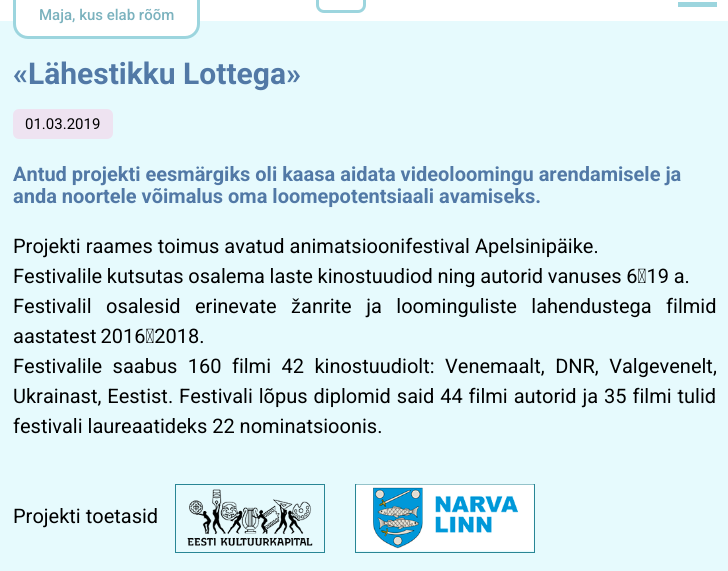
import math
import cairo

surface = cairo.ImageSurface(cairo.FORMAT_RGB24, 728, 571)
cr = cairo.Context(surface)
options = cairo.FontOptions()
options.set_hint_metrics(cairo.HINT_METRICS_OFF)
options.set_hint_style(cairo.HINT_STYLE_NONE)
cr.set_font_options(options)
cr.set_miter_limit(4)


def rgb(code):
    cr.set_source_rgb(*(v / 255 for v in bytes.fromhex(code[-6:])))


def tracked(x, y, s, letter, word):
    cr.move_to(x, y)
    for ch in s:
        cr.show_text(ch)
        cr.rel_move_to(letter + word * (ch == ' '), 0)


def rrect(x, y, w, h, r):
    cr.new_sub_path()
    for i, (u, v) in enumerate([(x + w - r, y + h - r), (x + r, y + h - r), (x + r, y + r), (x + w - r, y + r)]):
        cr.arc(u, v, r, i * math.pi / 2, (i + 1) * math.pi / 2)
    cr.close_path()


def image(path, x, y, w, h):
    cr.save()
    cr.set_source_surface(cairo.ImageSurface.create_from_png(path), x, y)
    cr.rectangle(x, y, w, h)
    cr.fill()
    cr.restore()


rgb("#ffffff")
cr.paint()
rrect(317.5, -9.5, 47, 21, 6.5)
rgb("#9cd5de")
cr.set_line_width(3)
cr.stroke()
cr.rectangle(678, 2, 39, 5)
cr.fill()
rgb("#e6fafd")
cr.rectangle(0, 21, 728, 550)
cr.fill()
rgb("#ffffff")
cr.new_path()
cr.move_to(14.5, -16.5)
cr.line_to(198.5, -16.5)
cr.line_to(198.5, 24)
cr.curve_to(198.5, 31.5, 192.5, 37.5, 185, 37.5)
cr.line_to(28, 37.5)
cr.curve_to(20.5, 37.5, 14.5, 31.5, 14.5, 24)
cr.close_path()
cr.fill_preserve()
rgb("#9cd5de")
cr.stroke()
rgb("#eee3f1")
rrect(13, 109, 100, 30, 6)
cr.fill()
cr.rectangle(175.5, 484.5, 149, 68)
rgb("#298695")
cr.set_line_width(1)
cr.stroke()
image("img/1.png", 187, 484, 137, 62)
cr.rectangle(355.5, 484.5, 179, 68)
cr.stroke()
image("img/2.png", 356, 484, 178, 67)
cr.select_font_face("Roboto Medium")
cr.set_font_size(15)
rgb("#7bb2be")
cr.move_to(39, 20)
cr.show_text("Maja, kus elab rõõm")
cr.select_font_face("Roboto", cairo.FONT_SLANT_NORMAL, cairo.FONT_WEIGHT_BOLD)
cr.set_font_size(30)
rgb("#5279a6")
cr.move_to(13, 84)
cr.show_text("«Lähestikku Lottega»")
cr.select_font_face("Roboto")
cr.set_font_size(15)
rgb("#000000")
cr.move_to(25, 129)
cr.show_text("01.03.2019")
cr.select_font_face("Roboto", cairo.FONT_SLANT_NORMAL, cairo.FONT_WEIGHT_BOLD)
cr.set_font_size(20)
rgb("#5279a6")
cr.move_to(13, 181)
cr.show_text("Antud projekti eesmärgiks oli kaasa aidata videoloomingu arendamisele ja")
cr.move_to(13, 203)
cr.show_text("anda noortele võimalus oma loomepotentsiaali avamiseks.")
cr.select_font_face("Roboto")
rgb("#000000")
cr.move_to(13, 253)
cr.show_text("Projekti raames toimus avatud animatsioonifestival Apelsinipäike.")
tracked(13, 283, "Festivalile kutsutas osalema laste kinostuudiod ning autorid vanuses 6‑19 a.", 0, -0.25)
tracked(13, 313, "Festivalil osalesid erinevate", 0, 9.5)
cr.select_font_face("Liberation Sans")
cr.move_to(291, 313)
cr.show_text("ž")
cr.select_font_face("Roboto")
tracked(301, 313, "anrite ja loominguliste lahendustega filmid", 0, 9.5)
tracked(13, 343, "aastatest 2016‑2018.", 0, -1)
tracked(13, 373, "Festivalile saabus 160 filmi 42 kinostuudiolt: Venemaalt, DNR, Valgevenelt,", 0, 5.5)
tracked(13, 403, "Ukrainast, Eestist. Festivali lõpus diplomid said 44 filmi autorid ja 35 filmi tulid", 0, 1)
cr.move_to(13, 433)
cr.show_text("festivali laureaatideks 22 nominatsioonis.")
cr.move_to(13, 523)
cr.show_text("Projekti toetasid")
surface.write_to_png("page.png")
